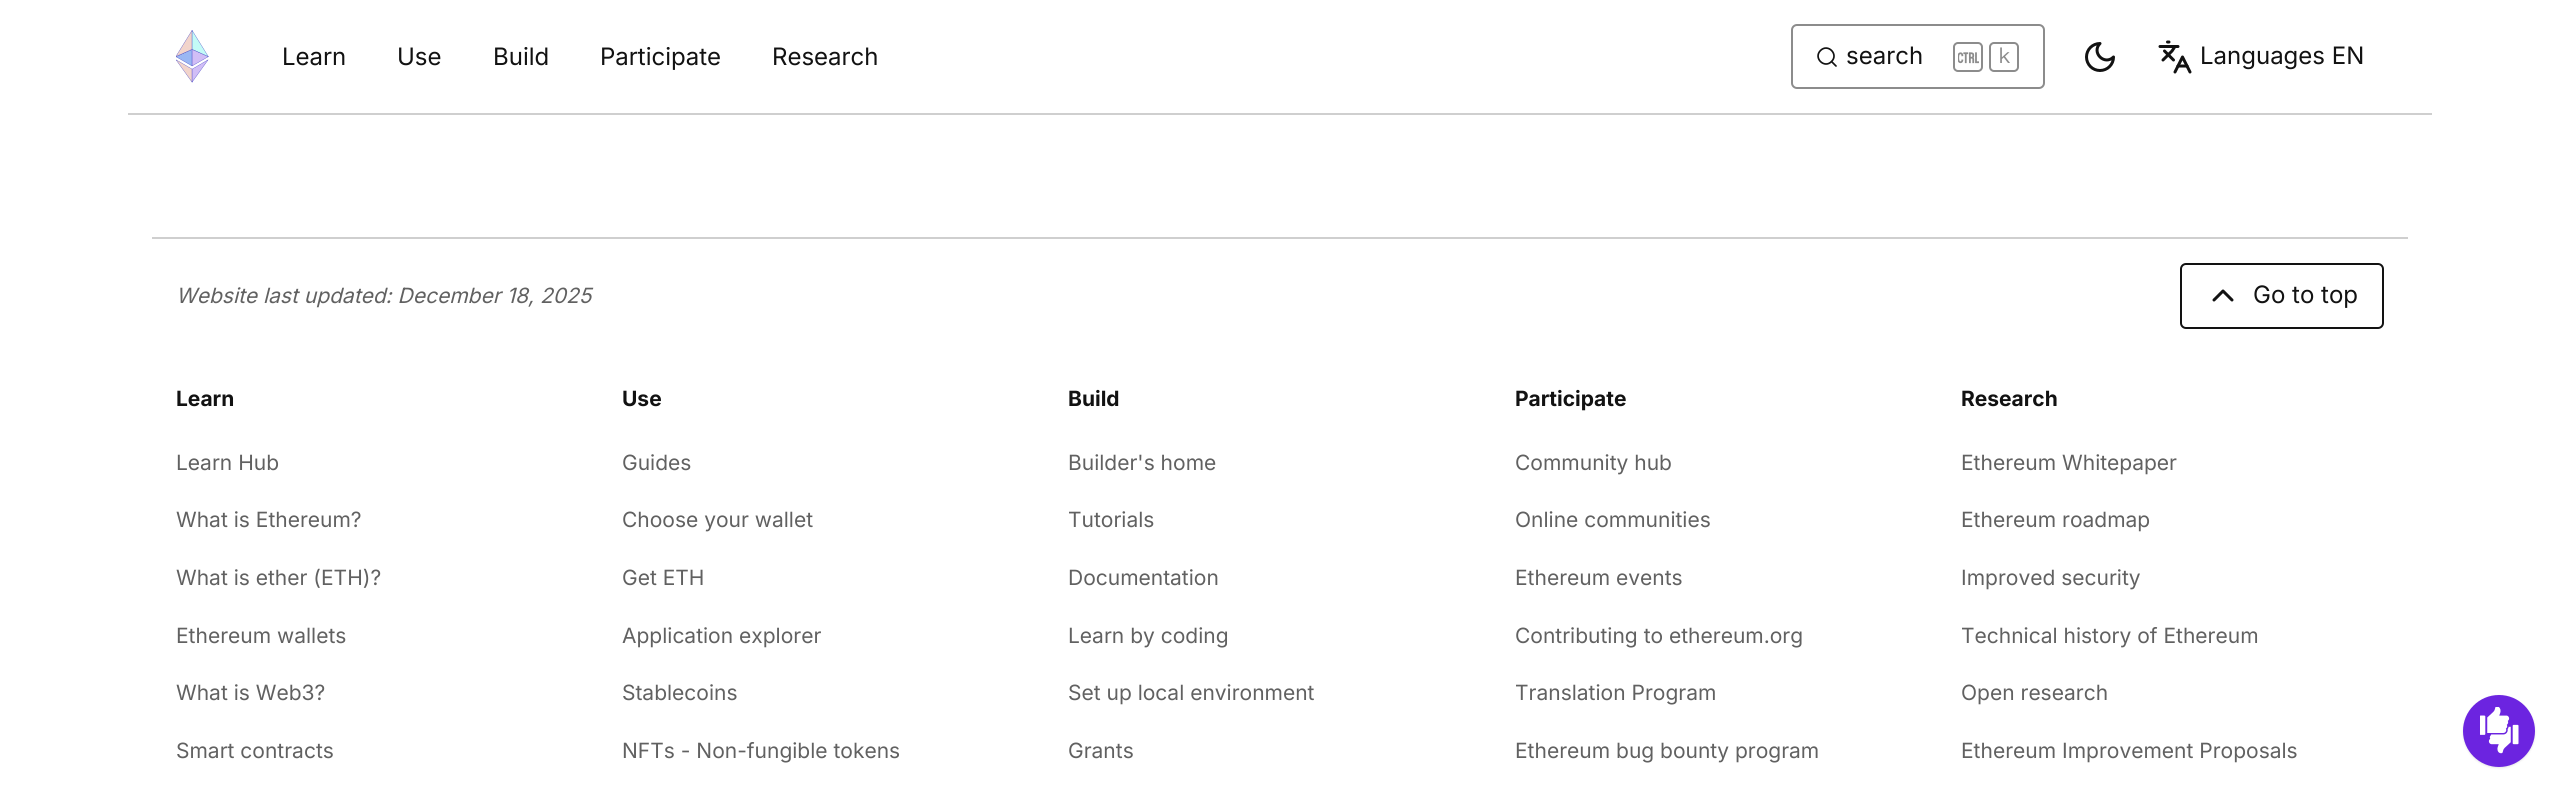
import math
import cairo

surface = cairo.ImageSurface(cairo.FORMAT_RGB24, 2559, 790)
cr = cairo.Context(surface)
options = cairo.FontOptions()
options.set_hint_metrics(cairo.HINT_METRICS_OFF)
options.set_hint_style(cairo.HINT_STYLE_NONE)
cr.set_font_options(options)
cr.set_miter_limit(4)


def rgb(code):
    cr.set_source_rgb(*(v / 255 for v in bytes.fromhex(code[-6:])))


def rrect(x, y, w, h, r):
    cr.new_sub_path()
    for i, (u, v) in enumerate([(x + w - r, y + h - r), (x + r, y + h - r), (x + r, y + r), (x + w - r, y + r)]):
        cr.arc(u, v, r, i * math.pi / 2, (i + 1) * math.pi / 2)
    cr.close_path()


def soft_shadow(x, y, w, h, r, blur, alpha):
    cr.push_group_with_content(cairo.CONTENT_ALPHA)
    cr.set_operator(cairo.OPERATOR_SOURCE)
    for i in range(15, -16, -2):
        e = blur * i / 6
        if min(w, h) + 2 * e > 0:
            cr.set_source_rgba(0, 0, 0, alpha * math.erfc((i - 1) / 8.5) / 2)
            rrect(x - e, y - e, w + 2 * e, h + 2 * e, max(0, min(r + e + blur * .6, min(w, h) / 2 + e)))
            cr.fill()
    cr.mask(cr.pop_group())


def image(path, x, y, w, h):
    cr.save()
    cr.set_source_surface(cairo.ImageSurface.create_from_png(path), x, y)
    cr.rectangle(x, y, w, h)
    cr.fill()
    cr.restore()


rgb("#ffffff")
cr.paint()
rgb("#cfcfcf")
cr.rectangle(128, 113, 2304, 2)
cr.fill()
image("img/1.png", 176, 30, 33, 53)
rrect(1792, 25, 252, 63, 5)
rgb("#8c8c8c")
cr.stroke()
cr.new_path()
cr.move_to(1831.5, 61.5)
cr.line_to(1836, 66)
cr.line_to(1831.5, 61.5)
cr.curve_to(1824.5, 69, 1813, 58, 1820.5, 50.5)
cr.curve_to(1828, 43, 1839, 54.5, 1831.5, 61.5)
cr.close_path()
rgb("#121212")
cr.set_line_width(1.7)
cr.set_line_cap(cairo.LINE_CAP_ROUND)
cr.set_line_join(cairo.LINE_JOIN_ROUND)
cr.stroke()
rrect(1954, 43, 28, 28, 4)
rgb("#8c8c8c")
cr.set_line_width(2)
cr.set_line_cap(cairo.LINE_CAP_BUTT)
cr.set_line_join(cairo.LINE_JOIN_MITER)
cr.stroke()
image("img/2.png", 1958, 52, 21, 12)
rrect(1990, 43, 28, 28, 4)
cr.stroke()
cr.new_path()
cr.move_to(2100, 43.5)
cr.curve_to(2091, 52.5, 2104.5, 66, 2113.5, 57)
cr.curve_to(2113.5, 64.5, 2107.5, 70.5, 2100, 70.5)
cr.curve_to(2092.5, 70.5, 2086.5, 64.5, 2086.5, 57)
cr.curve_to(2086.5, 49.5, 2092.5, 43.5, 2100, 43.5)
cr.close_path()
rgb("#121212")
cr.set_line_width(3)
cr.set_line_cap(cairo.LINE_CAP_ROUND)
cr.set_line_join(cairo.LINE_JOIN_ROUND)
cr.stroke()
image("img/3.png", 2158, 40, 34, 34)
rgb("#cfcfcf")
cr.rectangle(152, 237, 2256, 2)
cr.fill()
rrect(2181, 264, 202, 64, 5)
rgb("#121212")
cr.set_line_width(2)
cr.set_line_cap(cairo.LINE_CAP_BUTT)
cr.set_line_join(cairo.LINE_JOIN_MITER)
cr.stroke()
cr.new_path()
cr.move_to(2232, 300)
cr.line_to(2223, 291)
cr.line_to(2214, 300)
cr.set_line_width(3)
cr.set_line_cap(cairo.LINE_CAP_ROUND)
cr.set_line_join(cairo.LINE_JOIN_ROUND)
cr.stroke()
rgb("#000000")
soft_shadow(2463, 696, 72, 72, 36, 1, 0.1)
rgb("#6c24e0")
cr.arc(2499, 731, 36, 0, 2 * math.pi)
cr.fill()
image("img/4.png", 2480, 707, 39, 47)
cr.select_font_face("Inter")
cr.set_font_size(24)
rgb("#121212")
for x, y, s in [
    (282, 65, "Learn"),
    (397, 65, "Use"),
    (493, 65, "Build"),
    (600, 65, "Participate"),
    (772, 65, "Research"),
    (1846, 64, "search"),
]:
    cr.move_to(x, y)
    cr.show_text(s)
cr.select_font_face("IBM Plex Mono")
cr.set_font_size(21)
rgb("#8c8c8c")
cr.move_to(1998, 63)
cr.show_text("k")
cr.select_font_face("Inter")
cr.set_font_size(24)
rgb("#121212")
cr.move_to(2200, 64)
cr.show_text("Languages EN")
cr.select_font_face("Inter", cairo.FONT_SLANT_ITALIC)
cr.set_font_size(21)
rgb("#616161")
cr.move_to(176, 303)
cr.show_text("Website last updated: December 18, 2025")
cr.select_font_face("Inter")
cr.set_font_size(24)
rgb("#121212")
cr.move_to(2253, 303)
cr.show_text("Go to top")
cr.select_font_face("Inter", cairo.FONT_SLANT_NORMAL, cairo.FONT_WEIGHT_BOLD)
cr.set_font_size(21)
cr.move_to(176, 406)
cr.show_text("Learn")
cr.select_font_face("Inter")
rgb("#616161")
for x, y, s in [
    (176, 470, "Learn Hub"),
    (176, 527, "What is Ethereum?"),
    (176, 585, "What is ether (ETH)?"),
    (176, 643, "Ethereum wallets"),
    (176, 700, "What is Web3?"),
    (176, 758, "Smart contracts"),
]:
    cr.move_to(x, y)
    cr.show_text(s)
cr.select_font_face("Inter", cairo.FONT_SLANT_NORMAL, cairo.FONT_WEIGHT_BOLD)
rgb("#121212")
cr.move_to(622, 406)
cr.show_text("Use")
cr.select_font_face("Inter")
rgb("#616161")
for x, y, s in [
    (622, 470, "Guides"),
    (622, 527, "Choose your wallet"),
    (622, 585, "Get ETH"),
    (622, 643, "Application explorer"),
    (622, 700, "Stablecoins"),
    (622, 758, "NFTs - Non-fungible tokens"),
]:
    cr.move_to(x, y)
    cr.show_text(s)
cr.select_font_face("Inter", cairo.FONT_SLANT_NORMAL, cairo.FONT_WEIGHT_BOLD)
rgb("#121212")
cr.move_to(1068, 406)
cr.show_text("Build")
cr.select_font_face("Inter")
rgb("#616161")
for x, y, s in [
    (1068, 470, "Builder's home"),
    (1068, 527, "Tutorials"),
    (1068, 585, "Documentation"),
    (1068, 643, "Learn by coding"),
    (1068, 700, "Set up local environment"),
    (1068, 758, "Grants"),
]:
    cr.move_to(x, y)
    cr.show_text(s)
cr.select_font_face("Inter", cairo.FONT_SLANT_NORMAL, cairo.FONT_WEIGHT_BOLD)
rgb("#121212")
cr.move_to(1515, 406)
cr.show_text("Participate")
cr.select_font_face("Inter")
rgb("#616161")
for x, y, s in [
    (1515, 470, "Community hub"),
    (1515, 527, "Online communities"),
    (1515, 585, "Ethereum events"),
    (1515, 643, "Contributing to ethereum.org"),
    (1515, 700, "Translation Program"),
    (1515, 758, "Ethereum bug bounty program"),
]:
    cr.move_to(x, y)
    cr.show_text(s)
cr.select_font_face("Inter", cairo.FONT_SLANT_NORMAL, cairo.FONT_WEIGHT_BOLD)
rgb("#121212")
cr.move_to(1961, 406)
cr.show_text("Research")
cr.select_font_face("Inter")
rgb("#616161")
for x, y, s in [
    (1961, 470, "Ethereum Whitepaper"),
    (1961, 527, "Ethereum roadmap"),
    (1961, 585, "Improved security"),
    (1961, 643, "Technical history of Ethereum"),
    (1961, 700, "Open research"),
    (1961, 758, "Ethereum Improvement Proposals"),
]:
    cr.move_to(x, y)
    cr.show_text(s)
surface.write_to_png("page.png")
